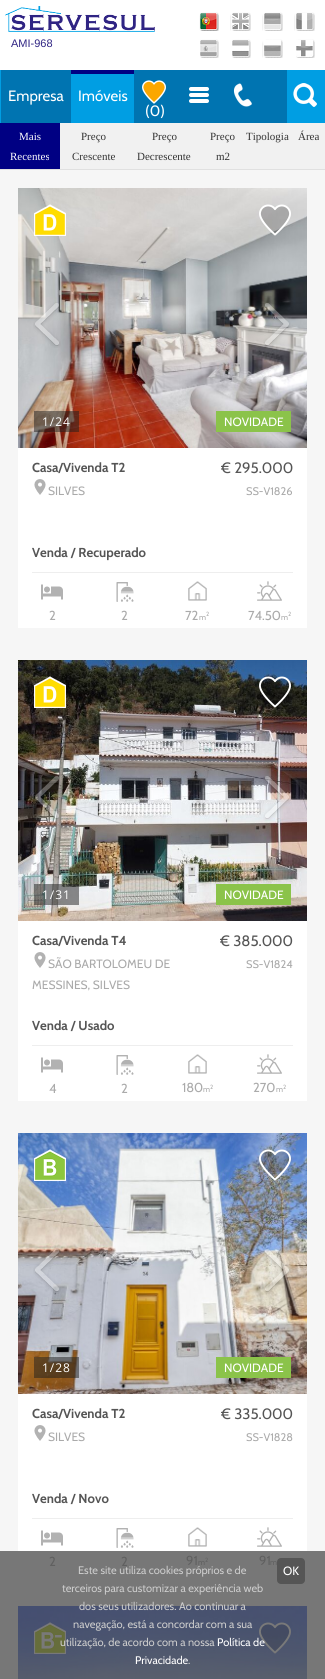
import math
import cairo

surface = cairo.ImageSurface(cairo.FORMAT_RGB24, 325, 1679)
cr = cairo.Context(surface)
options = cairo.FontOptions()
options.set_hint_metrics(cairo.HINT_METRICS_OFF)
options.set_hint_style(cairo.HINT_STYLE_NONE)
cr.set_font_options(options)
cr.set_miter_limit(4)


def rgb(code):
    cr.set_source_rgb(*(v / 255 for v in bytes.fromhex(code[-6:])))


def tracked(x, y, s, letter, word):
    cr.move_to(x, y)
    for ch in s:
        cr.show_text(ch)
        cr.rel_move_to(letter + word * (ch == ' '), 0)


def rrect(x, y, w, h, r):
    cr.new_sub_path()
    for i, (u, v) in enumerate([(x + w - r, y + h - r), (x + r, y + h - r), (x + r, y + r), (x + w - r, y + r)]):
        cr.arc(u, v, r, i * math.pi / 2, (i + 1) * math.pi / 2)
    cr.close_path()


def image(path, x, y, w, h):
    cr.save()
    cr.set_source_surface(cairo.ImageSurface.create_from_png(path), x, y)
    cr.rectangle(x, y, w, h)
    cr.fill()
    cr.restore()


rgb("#ffffff")
cr.paint()
image("img/1.png", 5, 6, 150, 26)
image("img/2.png", 199, 12, 20, 19)
image("img/3.png", 230, 12, 21, 19)
image("img/4.png", 262, 12, 21, 19)
image("img/5.png", 294, 12, 21, 19)
image("img/6.png", 200, 39, 19, 19)
image("img/7.png", 232, 39, 19, 19)
image("img/8.png", 262, 39, 21, 19)
image("img/9.png", 296, 39, 19, 19)
for x, y, w, h, color in [
    (287, 70, 38, 53, "#009ee3"),
    (0, 70, 1, 53, "#009ee3"),
    (1, 70, 286, 53, "#0074b1"),
    (71, 74, 63, 49, "#009ee3"),
    (71, 70, 63, 4, "#000083"),
]:
    rgb(color)
    cr.rectangle(x, y, w, h)
    cr.fill()
image("img/10.png", 189, 87, 20, 16)
image("img/11.png", 233, 83, 19, 24)
image("img/12.png", 293, 83, 24, 24)
image("img/13.png", 142, 80, 24, 24)
for x, y, w, h, color in [
    (0, 170, 325, 1381, "#f6f6f6"),
    (0, 1551, 325, 128, "#777777"),
    (60, 123, 265, 46, "#f1f1f1"),
    (0, 169, 325, 1, "#e0e0e0"),
    (0, 123, 60, 46, "#000083"),
    (18, 448, 289, 180, "#ffffff"),
]:
    rgb(color)
    cr.rectangle(x, y, w, h)
    cr.fill()
image("img/14.png", 18, 188, 289, 260)
image("img/15.png", 34, 204, 32, 32)
image("img/16.png", 259, 204, 32, 32)
image("img/17.png", 33, 302, 28, 46)
image("img/18.png", 263, 303, 28, 45)
cr.set_source_rgba(0.118, 0.118, 0.118, 0.5)
cr.rectangle(34, 411, 45, 21)
cr.fill()
rgb("#8bc34a")
cr.rectangle(216, 411, 75, 21)
cr.fill()
image("img/19.png", 34, 479, 12, 16)
rgb("#eeeeee")
cr.rectangle(32, 572, 261, 1)
cr.fill()
image("img/20.png", 41, 584, 22, 16)
image("img/21.png", 116, 582, 18, 20)
image("img/22.png", 188, 581, 19, 20)
image("img/23.png", 257, 581, 25, 20)
rgb("#ffffff")
cr.rectangle(18, 921, 289, 180)
cr.fill()
image("img/24.png", 18, 660, 289, 261)
image("img/25.png", 34, 676, 32, 32)
image("img/26.png", 259, 676, 32, 32)
image("img/27.png", 35, 776, 25, 45)
image("img/28.png", 263, 776, 28, 45)
cr.set_source_rgba(0.118, 0.118, 0.118, 0.5)
cr.rectangle(34, 884, 45, 21)
cr.fill()
rgb("#8bc34a")
cr.rectangle(216, 884, 75, 21)
cr.fill()
image("img/19.png", 34, 952, 12, 16)
rgb("#eeeeee")
cr.rectangle(32, 1045, 261, 1)
cr.fill()
image("img/20.png", 41, 1057, 22, 16)
image("img/21.png", 116, 1055, 18, 20)
image("img/22.png", 188, 1054, 19, 20)
image("img/23.png", 257, 1054, 25, 20)
rgb("#ffffff")
cr.rectangle(18, 1394, 289, 157)
cr.fill()
image("img/29.png", 18, 1133, 289, 261)
image("img/30.png", 34, 1149, 32, 32)
image("img/31.png", 259, 1149, 32, 32)
image("img/32.png", 33, 1248, 28, 46)
image("img/33.png", 263, 1248, 28, 46)
cr.set_source_rgba(0.118, 0.118, 0.118, 0.5)
cr.rectangle(34, 1357, 45, 21)
cr.fill()
rgb("#8bc34a")
cr.rectangle(216, 1357, 75, 21)
cr.fill()
image("img/19.png", 34, 1425, 12, 16)
rgb("#eeeeee")
cr.rectangle(32, 1518, 261, 1)
cr.fill()
image("img/20.png", 41, 1530, 22, 16)
image("img/21.png", 116, 1528, 18, 20)
image("img/22.png", 188, 1527, 19, 20)
image("img/23.png", 257, 1527, 25, 20)
image("img/34.png", 18, 1606, 289, 73)
image("img/35.png", 34, 1622, 32, 32)
image("img/36.png", 259, 1622, 32, 32)
rgb("#555555")
rrect(277, 1558, 28, 26, 4)
cr.fill()
cr.select_font_face("Liberation Sans")
cr.set_font_size(11)
rgb("#2f2483")
cr.move_to(11, 47)
cr.show_text("AMI-968")
cr.select_font_face("Cabin")
cr.set_font_size(15)
rgb("#ffffff")
for x, y, s in [
    (8, 101, "Empresa"),
    (78, 101, "Imóveis"),
    (145, 116, "(0)"),
]:
    cr.move_to(x, y)
    cr.show_text(s)
cr.select_font_face("Liberation Serif")
cr.set_font_size(11)
cr.move_to(19, 140)
cr.show_text("Mais")
cr.move_to(10, 160)
cr.show_text("Recentes")
rgb("#333333")
for x, y, s in [
    (81, 140, "Preço"),
    (72, 160, "Crescente"),
    (152, 140, "Preço"),
    (137, 160, "Decrescente"),
    (210, 140, "Preço"),
    (216, 160, "m2"),
    (246, 140, "Tipologia"),
    (298, 140, "Área"),
]:
    cr.move_to(x, y)
    cr.show_text(s)
cr.select_font_face("Open Sans")
cr.set_font_size(12)
rgb("#ffffff")
tracked(42, 426, "1/24", 1, 0)
cr.select_font_face("Cabin")
cr.move_to(224, 426)
cr.show_text("NOVIDADE")
cr.select_font_face("Cabin", cairo.FONT_SLANT_NORMAL, cairo.FONT_WEIGHT_BOLD)
cr.set_font_size(13)
rgb("#555555")
cr.move_to(32, 472)
cr.show_text("Casa/Vivenda T2")
cr.select_font_face("Cabin")
cr.set_font_size(12)
rgb("#aaaaaa")
cr.move_to(48, 495)
cr.show_text("SILVES")
cr.save()
cr.rectangle(221, 457, 72, 45)
cr.clip()
cr.set_font_size(15)
rgb("#555555")
cr.move_to(221, 473)
cr.show_text("€ 295.000")
cr.restore()
cr.set_font_size(11)
cr.move_to(246, 495)
cr.show_text("SS-V1826")
cr.select_font_face("Cabin", cairo.FONT_SLANT_NORMAL, cairo.FONT_WEIGHT_BOLD)
cr.set_font_size(13)
rgb("#555555")
cr.move_to(32, 557)
cr.show_text("Venda / Recuperado")
cr.select_font_face("Cabin")
rgb("#aaaaaa")
for x, y, s in [
    (49, 620, "2"),
    (121, 620, "2"),
    (185, 620, "72"),
]:
    cr.move_to(x, y)
    cr.show_text(s)
cr.set_font_size(6)
cr.move_to(206, 616)
cr.show_text("2")
cr.set_font_size(8)
cr.move_to(199, 620)
cr.show_text("m")
cr.set_font_size(13)
cr.move_to(248, 620)
cr.show_text("74.50")
cr.set_font_size(6)
cr.move_to(288, 616)
cr.show_text("2")
cr.set_font_size(8)
cr.move_to(281, 620)
cr.show_text("m")
cr.select_font_face("Open Sans")
cr.set_font_size(12)
rgb("#ffffff")
tracked(42, 899, "1/31", 1, 0)
cr.select_font_face("Cabin")
cr.move_to(224, 899)
cr.show_text("NOVIDADE")
cr.select_font_face("Cabin", cairo.FONT_SLANT_NORMAL, cairo.FONT_WEIGHT_BOLD)
cr.set_font_size(13)
rgb("#555555")
cr.move_to(32, 945)
cr.show_text("Casa/Vivenda T4")
cr.select_font_face("Cabin")
cr.set_font_size(12)
rgb("#aaaaaa")
cr.move_to(48, 968)
cr.show_text("SÃO BARTOLOMEU DE")
cr.move_to(32, 989)
cr.show_text("MESSINES, SILVES")
cr.save()
cr.rectangle(220, 930, 73, 45)
cr.clip()
cr.set_font_size(15)
rgb("#555555")
cr.move_to(220, 946)
cr.show_text("€ 385.000")
cr.restore()
cr.set_font_size(11)
cr.move_to(246, 968)
cr.show_text("SS-V1824")
cr.select_font_face("Cabin", cairo.FONT_SLANT_NORMAL, cairo.FONT_WEIGHT_BOLD)
cr.set_font_size(13)
rgb("#555555")
cr.move_to(32, 1030)
cr.show_text("Venda / Usado")
cr.select_font_face("Cabin")
rgb("#aaaaaa")
for x, y, s in [
    (49, 1093, "4"),
    (121, 1093, "2"),
    (182, 1092, "180"),
]:
    cr.move_to(x, y)
    cr.show_text(s)
cr.set_font_size(6)
cr.move_to(210, 1089)
cr.show_text("2")
cr.set_font_size(8)
cr.move_to(203, 1092)
cr.show_text("m")
cr.set_font_size(13)
cr.move_to(253, 1092)
cr.show_text("270")
cr.set_font_size(6)
cr.move_to(283, 1089)
cr.show_text("2")
cr.set_font_size(8)
cr.move_to(276, 1092)
cr.show_text("m")
cr.select_font_face("Open Sans")
cr.set_font_size(12)
rgb("#ffffff")
tracked(42, 1372, "1/28", 1, 0)
cr.select_font_face("Cabin")
cr.move_to(224, 1372)
cr.show_text("NOVIDADE")
cr.select_font_face("Cabin", cairo.FONT_SLANT_NORMAL, cairo.FONT_WEIGHT_BOLD)
cr.set_font_size(13)
rgb("#555555")
cr.move_to(32, 1418)
cr.show_text("Casa/Vivenda T2")
cr.select_font_face("Cabin")
cr.set_font_size(12)
rgb("#aaaaaa")
cr.move_to(48, 1441)
cr.show_text("SILVES")
cr.save()
cr.rectangle(221, 1403, 72, 45)
cr.clip()
cr.set_font_size(15)
rgb("#555555")
cr.move_to(221, 1419)
cr.show_text("€ 335.000")
cr.restore()
cr.set_font_size(11)
cr.move_to(246, 1441)
cr.show_text("SS-V1828")
cr.select_font_face("Cabin", cairo.FONT_SLANT_NORMAL, cairo.FONT_WEIGHT_BOLD)
cr.set_font_size(13)
rgb("#555555")
cr.move_to(32, 1503)
cr.show_text("Venda / Novo")
cr.select_font_face("Cabin")
rgb("#606060")
for x, y, s in [
    (49, 1566, "2"),
    (121, 1566, "2"),
    (186, 1565, "91"),
]:
    cr.move_to(x, y)
    cr.show_text(s)
cr.set_font_size(6)
cr.move_to(205, 1562)
cr.show_text("2")
cr.set_font_size(8)
cr.move_to(198, 1565)
cr.show_text("m")
cr.set_font_size(13)
cr.move_to(259, 1565)
cr.show_text("91")
cr.set_font_size(8)
cr.move_to(270, 1565)
cr.show_text("m")
cr.set_font_size(11)
rgb("#cccccc")
cr.move_to(78, 1574)
cr.show_text("Este site utiliza cookies próprios e de")
cr.set_font_size(12)
rgb("#ffffff")
cr.move_to(283, 1575)
cr.show_text("OK")
cr.set_font_size(11)
rgb("#cccccc")
for x, y, s in [
    (62, 1592, "terceiros para customizar a experiência web"),
    (79, 1610, "dos seus utilizadores. Ao continuar a"),
    (73, 1628, "navegação, está a concordar com a sua"),
    (60, 1646, "utilização, de acordo com a nossa"),
]:
    cr.move_to(x, y)
    cr.show_text(s)
rgb("#ffffff")
cr.move_to(217, 1646)
cr.show_text("Política de")
cr.move_to(135, 1664)
cr.show_text("Privacidade")
rgb("#cccccc")
cr.move_to(188, 1664)
cr.show_text(".")
surface.write_to_png("page.png")
